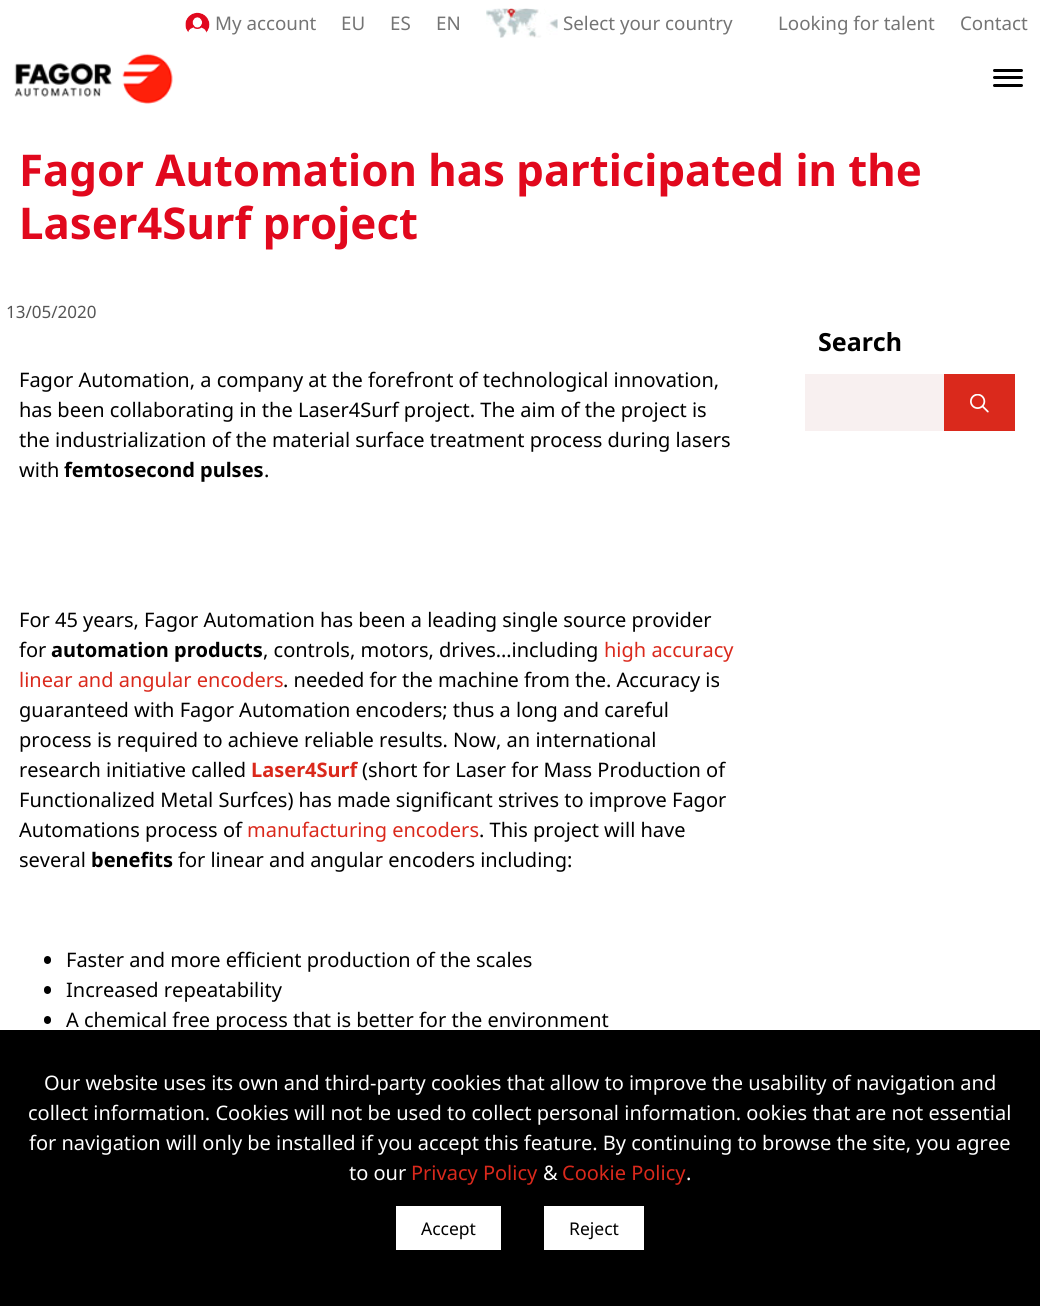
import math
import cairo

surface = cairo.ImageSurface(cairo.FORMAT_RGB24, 1040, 1306)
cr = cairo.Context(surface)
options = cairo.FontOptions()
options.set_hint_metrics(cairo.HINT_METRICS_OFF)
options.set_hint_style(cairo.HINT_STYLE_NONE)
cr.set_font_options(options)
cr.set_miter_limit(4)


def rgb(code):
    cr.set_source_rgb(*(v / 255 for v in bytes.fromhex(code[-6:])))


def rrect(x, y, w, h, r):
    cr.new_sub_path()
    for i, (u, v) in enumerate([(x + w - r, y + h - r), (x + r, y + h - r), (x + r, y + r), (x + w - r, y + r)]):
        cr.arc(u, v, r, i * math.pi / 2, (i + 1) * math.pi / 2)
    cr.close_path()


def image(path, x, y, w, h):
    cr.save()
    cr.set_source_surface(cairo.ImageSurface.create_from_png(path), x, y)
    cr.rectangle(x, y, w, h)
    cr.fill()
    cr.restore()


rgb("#ffffff")
cr.paint()
image("img/1.png", 185, 12, 25, 21)
image("img/2.png", 486, 8, 72, 30)
image("img/3.png", 14, 53, 159, 51)
rgb("#000000")
rrect(993, 69, 30, 3, 1.5)
cr.fill()
rrect(993, 76, 30, 3, 1.5)
cr.fill()
rrect(993, 84, 30, 3, 1.5)
cr.fill()
rrect(44, 956, 7, 8, 3.5)
cr.fill()
rrect(44, 986, 7, 8, 3.5)
cr.fill()
rrect(44, 1016, 7, 8, 3.5)
cr.fill()
rgb("#f8f0f0")
cr.rectangle(805, 374, 139, 57)
cr.fill()
rgb("#da291c")
cr.rectangle(944, 374, 71, 57)
cr.fill()
image("img/4.png", 970, 394, 19, 19)
for x, y, w, h, color in [
    (0, 1030, 1040, 276, "#000000"),
    (396, 1206, 105, 44, "#ffffff"),
    (544, 1206, 100, 44, "#ffffff"),
]:
    rgb(color)
    cr.rectangle(x, y, w, h)
    cr.fill()
cr.select_font_face("Noto Sans")
cr.set_font_size(18.75)
rgb("#747474")
for x, y, s in [
    (215, 30, "My account"),
    (341, 30, "EU"),
    (390, 30, "ES"),
    (436, 30, "EN"),
    (563, 30, "Select your country"),
    (778, 30, "Looking for talent"),
    (960, 30, "Contact"),
]:
    cr.move_to(x, y)
    cr.show_text(s)
cr.select_font_face("Noto Sans", cairo.FONT_SLANT_NORMAL, cairo.FONT_WEIGHT_BOLD)
cr.set_font_size(43.75)
rgb("#e1081d")
cr.move_to(19, 186)
cr.show_text("Fagor Automation has participated in the")
cr.move_to(19, 239)
cr.show_text("Laser4Surf project")
cr.select_font_face("Noto Sans")
cr.set_font_size(17)
rgb("#555555")
cr.move_to(6, 318)
cr.show_text("13/05/2020")
cr.set_font_size(20)
rgb("#000000")
for x, y, s in [
    (19, 387, "Fagor Automation, a company at the forefront of technological innovation,"),
    (19, 417, "has been collaborating in the Laser4Surf project. The aim of the project is"),
    (19, 447, "the industrialization of the material surface treatment process during lasers"),
    (19, 477, "with"),
]:
    cr.move_to(x, y)
    cr.show_text(s)
cr.select_font_face("Noto Sans", cairo.FONT_SLANT_NORMAL, cairo.FONT_WEIGHT_BOLD)
cr.move_to(64, 477)
cr.show_text("femtosecond pulses")
cr.select_font_face("Noto Sans")
for x, y, s in [
    (264, 477, "."),
    (19, 627, "For 45 years, Fagor Automation has been a leading single source provider"),
    (19, 657, "for"),
]:
    cr.move_to(x, y)
    cr.show_text(s)
cr.select_font_face("Noto Sans", cairo.FONT_SLANT_NORMAL, cairo.FONT_WEIGHT_BOLD)
cr.move_to(51, 657)
cr.show_text("automation products")
cr.select_font_face("Noto Sans")
cr.move_to(263, 657)
cr.show_text(", controls, motors, drives…including")
rgb("#da291c")
cr.move_to(604, 657)
cr.show_text("high accuracy")
cr.move_to(19, 687)
cr.show_text("linear and angular encoders")
rgb("#000000")
for x, y, s in [
    (283, 687, ". needed for the machine from the. Accuracy is"),
    (19, 717, "guaranteed with Fagor Automation encoders; thus a long and careful"),
    (19, 747, "process is required to achieve reliable results. Now, an international"),
    (19, 777, "research initiative called"),
]:
    cr.move_to(x, y)
    cr.show_text(s)
cr.select_font_face("Noto Sans", cairo.FONT_SLANT_NORMAL, cairo.FONT_WEIGHT_BOLD)
rgb("#da291c")
cr.move_to(251, 777)
cr.show_text("Laser4Surf")
cr.select_font_face("Noto Sans")
rgb("#000000")
for x, y, s in [
    (362, 777, "(short for Laser for Mass Production of"),
    (19, 807, "Functionalized Metal Surfces) has made significant strives to improve Fagor"),
    (19, 837, "Automations process of"),
]:
    cr.move_to(x, y)
    cr.show_text(s)
rgb("#da291c")
cr.move_to(247, 837)
cr.show_text("manufacturing encoders")
rgb("#000000")
cr.move_to(479, 837)
cr.show_text(". This project will have")
cr.move_to(19, 867)
cr.show_text("several")
cr.select_font_face("Noto Sans", cairo.FONT_SLANT_NORMAL, cairo.FONT_WEIGHT_BOLD)
cr.move_to(91, 867)
cr.show_text("benefits")
cr.select_font_face("Noto Sans")
for x, y, s in [
    (178, 867, "for linear and angular encoders including:"),
    (66, 967, "Faster and more efficient production of the scales"),
    (66, 997, "Increased repeatability"),
    (66, 1027, "A chemical free process that is better for the environment"),
]:
    cr.move_to(x, y)
    cr.show_text(s)
cr.select_font_face("Noto Sans", cairo.FONT_SLANT_NORMAL, cairo.FONT_WEIGHT_BOLD)
cr.set_font_size(25)
cr.move_to(818, 351)
cr.show_text("Search")
cr.select_font_face("Noto Sans")
cr.set_font_size(20)
rgb("#ffffff")
for x, y, s in [
    (44, 1090, "Our website uses its own and third-party cookies that allow to improve the usability of navigation and"),
    (28, 1120, "collect information. Cookies will not be used to collect personal information. ookies that are not essential"),
    (29, 1150, "for navigation will only be installed if you accept this feature. By continuing to browse the site, you agree"),
    (349, 1180, "to our"),
]:
    cr.move_to(x, y)
    cr.show_text(s)
rgb("#da291c")
cr.move_to(411, 1180)
cr.show_text("Privacy Policy")
rgb("#ffffff")
cr.move_to(543, 1180)
cr.show_text("&")
rgb("#da291c")
cr.move_to(562, 1180)
cr.show_text("Cookie Policy")
rgb("#ffffff")
cr.move_to(686, 1180)
cr.show_text(".")
cr.set_font_size(17.5)
rgb("#000000")
cr.move_to(421, 1235)
cr.show_text("Accept")
cr.move_to(569, 1235)
cr.show_text("Reject")
surface.write_to_png("page.png")
